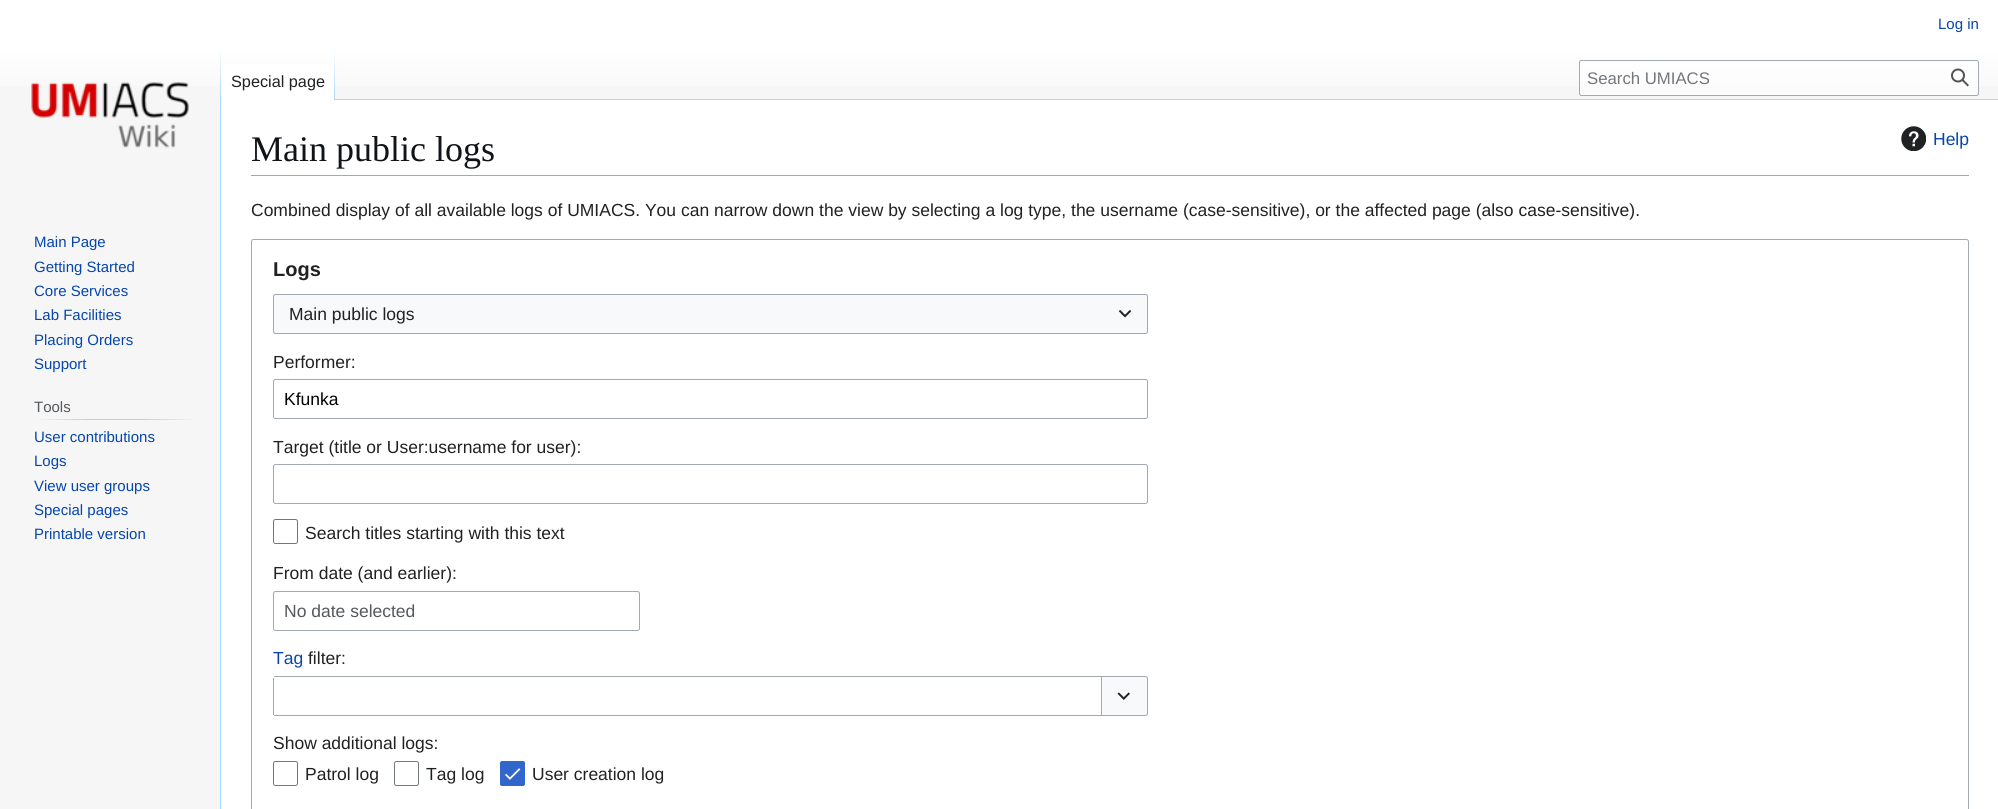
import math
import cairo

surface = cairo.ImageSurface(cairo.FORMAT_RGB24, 1998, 809)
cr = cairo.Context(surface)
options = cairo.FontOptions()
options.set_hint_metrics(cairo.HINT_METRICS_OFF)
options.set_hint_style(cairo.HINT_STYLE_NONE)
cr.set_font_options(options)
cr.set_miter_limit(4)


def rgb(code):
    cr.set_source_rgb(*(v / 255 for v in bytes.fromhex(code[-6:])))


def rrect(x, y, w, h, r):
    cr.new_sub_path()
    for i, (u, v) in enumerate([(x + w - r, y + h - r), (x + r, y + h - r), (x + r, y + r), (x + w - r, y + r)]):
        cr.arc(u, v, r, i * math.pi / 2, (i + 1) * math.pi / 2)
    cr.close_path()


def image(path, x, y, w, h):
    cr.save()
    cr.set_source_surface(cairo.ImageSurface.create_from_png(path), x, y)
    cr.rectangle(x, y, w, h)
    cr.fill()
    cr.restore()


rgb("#f6f6f6")
cr.paint()
gradient = cairo.LinearGradient(999, 0, 999, 100)
gradient.add_color_stop_rgba(0.5, 1, 1, 1, 1)
gradient.add_color_stop_rgba(1, 0.965, 0.965, 0.965, 1)
cr.set_source(gradient)
cr.rectangle(0, 0, 1998, 86)
cr.fill()
rgb("#a7d7f9")
cr.rectangle(220, 99, 1, 710)
cr.fill()
gradient = cairo.LinearGradient(221, 50, 221, 100)
gradient.add_color_stop_rgba(0, 0.655, 0.843, 0.976, 0)
gradient.add_color_stop_rgba(1, 0.655, 0.843, 0.976, 1)
cr.set_source(gradient)
cr.rectangle(220, 50, 1, 50)
cr.fill()
rgb("#ffffff")
cr.rectangle(221, 64, 113, 36)
cr.fill()
gradient = cairo.LinearGradient(334, 50, 334, 100)
gradient.add_color_stop_rgba(0, 1, 1, 1, 1)
gradient.add_color_stop_rgba(1, 0.655, 0.843, 0.976, 1)
cr.set_source(gradient)
cr.rectangle(334, 50, 1, 50)
cr.fill()
cr.set_source_rgba(1, 1, 1, 0.5)
rrect(1579.5, 60.5, 399, 35, 2)
cr.fill_preserve()
rgb("#a2a9b1")
cr.set_line_width(1)
cr.stroke()
image("img/1.png", 1951, 68, 18, 19)
image("img/2.png", 31, 82, 158, 66)
gradient = cairo.LinearGradient(34, 419, 198, 419)
gradient.add_color_stop_rgba(0, 0.965, 0.965, 0.965, 1)
gradient.add_color_stop_rgba(0.33, 0.784, 0.8, 0.82, 1)
gradient.add_color_stop_rgba(0.66, 0.784, 0.8, 0.82, 1)
gradient.add_color_stop_rgba(1, 0.965, 0.965, 0.965, 1)
cr.set_source(gradient)
cr.rectangle(34, 419, 164, 1)
cr.fill()
for x, y, w, h, color in [
    (221, 100, 1777, 709, "#ffffff"),
    (335, 99, 1663, 1, "#a7d7f9"),
    (251, 175, 1718, 1, "#a2a9b1"),
]:
    rgb(color)
    cr.rectangle(x, y, w, h)
    cr.fill()
image("img/3.png", 1901, 126, 25, 25)
rrect(251.5, 239.5, 1717, 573, 2)
cr.stroke()
rgb("#f8f9fa")
cr.rectangle(273, 294, 875, 40)
cr.fill()
rrect(273.5, 294.5, 874, 39, 2)
rgb("#a2a9b1")
cr.stroke()
image("img/4.png", 1118, 310, 14, 8)
rrect(273.5, 379.5, 874, 39, 2)
cr.stroke()
rrect(273.5, 464.5, 874, 39, 2)
cr.stroke()
rrect(273.5, 519.5, 24, 24, 2)
rgb("#72777d")
cr.stroke()
rrect(273.5, 591.5, 366, 39, 2)
rgb("#a2a9b1")
cr.stroke()
for x, y, w, h, color in [
    (274, 676, 827, 1, "#a2a9b1"),
    (274, 715, 827, 1, "#a2a9b1"),
    (273, 678, 1, 37, "#a2a9b1"),
]:
    rgb(color)
    cr.rectangle(x, y, w, h)
    cr.fill()
rgb("#f8f9fa")
cr.new_path()
cr.move_to(1101.5, 676.5)
cr.line_to(1145.5, 676.5)
cr.curve_to(1146.5, 676.5, 1147.5, 677.5, 1147.5, 678.5)
cr.line_to(1147.5, 713.5)
cr.curve_to(1147.5, 714.5, 1146.5, 715.5, 1145.5, 715.5)
cr.line_to(1101.5, 715.5)
cr.close_path()
cr.fill_preserve()
rgb("#a2a9b1")
cr.stroke()
image("img/5.png", 1117, 692, 13, 8)
rrect(273.5, 761.5, 24, 24, 2)
rgb("#72777d")
cr.stroke()
rrect(394.5, 761.5, 24, 24, 2)
cr.stroke()
rgb("#3366cc")
rrect(500, 761, 25, 25, 2.5)
cr.fill()
image("img/6.png", 505, 768, 16, 12)
rrect(500.5, 761.5, 24, 24, 2)
cr.stroke()
cr.select_font_face("Liberation Sans")
cr.set_font_size(15)
rgb("#0645ad")
cr.move_to(1938, 29)
cr.show_text("Log in")
cr.set_font_size(16.25)
rgb("#202122")
cr.move_to(231, 87)
cr.show_text("Special page")
cr.set_font_size(16.75)
rgb("#72777d")
cr.move_to(1587, 84)
cr.show_text("Search UMIACS")
cr.set_font_size(15)
rgb("#0645ad")
for x, y, s in [
    (34, 247, "Main Page"),
    (34, 272, "Getting Started"),
    (34, 296, "Core Services"),
    (34, 320, "Lab Facilities"),
    (34, 345, "Placing Orders"),
    (34, 369, "Support"),
]:
    cr.move_to(x, y)
    cr.show_text(s)
rgb("#54595d")
cr.move_to(34, 412)
cr.show_text("Tools")
rgb("#0645ad")
for x, y, s in [
    (34, 442, "User contributions"),
    (34, 466, "Logs"),
    (34, 491, "View user groups"),
    (34, 515, "Special pages"),
    (34, 539, "Printable version"),
]:
    cr.move_to(x, y)
    cr.show_text(s)
cr.select_font_face("Liberation Serif")
cr.set_font_size(36)
rgb("#101418")
cr.move_to(251, 161)
cr.show_text("Main public logs")
cr.select_font_face("Liberation Sans")
cr.set_font_size(17.5)
rgb("#0645ad")
cr.move_to(1933, 145)
cr.show_text("Help")
rgb("#202122")
cr.move_to(251, 216)
cr.show_text("Combined display of all available logs of UMIACS. You can narrow down the view by selecting a log type, the username (case-sensitive), or the affected page (also case-sensitive).")
cr.select_font_face("Liberation Sans", cairo.FONT_SLANT_NORMAL, cairo.FONT_WEIGHT_BOLD)
cr.set_font_size(20)
cr.move_to(273, 276)
cr.show_text("Logs")
cr.select_font_face("Liberation Sans")
cr.set_font_size(17.5)
cr.move_to(289, 320)
cr.show_text("Main public logs")
cr.move_to(273, 368)
cr.show_text("Performer:")
rgb("#000000")
cr.move_to(284, 405)
cr.show_text("Kfunka")
rgb("#202122")
for x, y, s in [
    (273, 453, "Target (title or User:username for user):"),
    (305, 539, "Search titles starting with this text"),
    (273, 579, "From date (and earlier):"),
]:
    cr.move_to(x, y)
    cr.show_text(s)
rgb("#54595d")
cr.move_to(284, 617)
cr.show_text("No date selected")
rgb("#0645ad")
cr.move_to(273, 664)
cr.show_text("Tag")
rgb("#202122")
for x, y, s in [
    (308, 664, "filter:"),
    (273, 749, "Show additional logs:"),
    (305, 780, "Patrol log"),
    (426, 780, "Tag log"),
    (532, 780, "User creation log"),
]:
    cr.move_to(x, y)
    cr.show_text(s)
surface.write_to_png("page.png")
